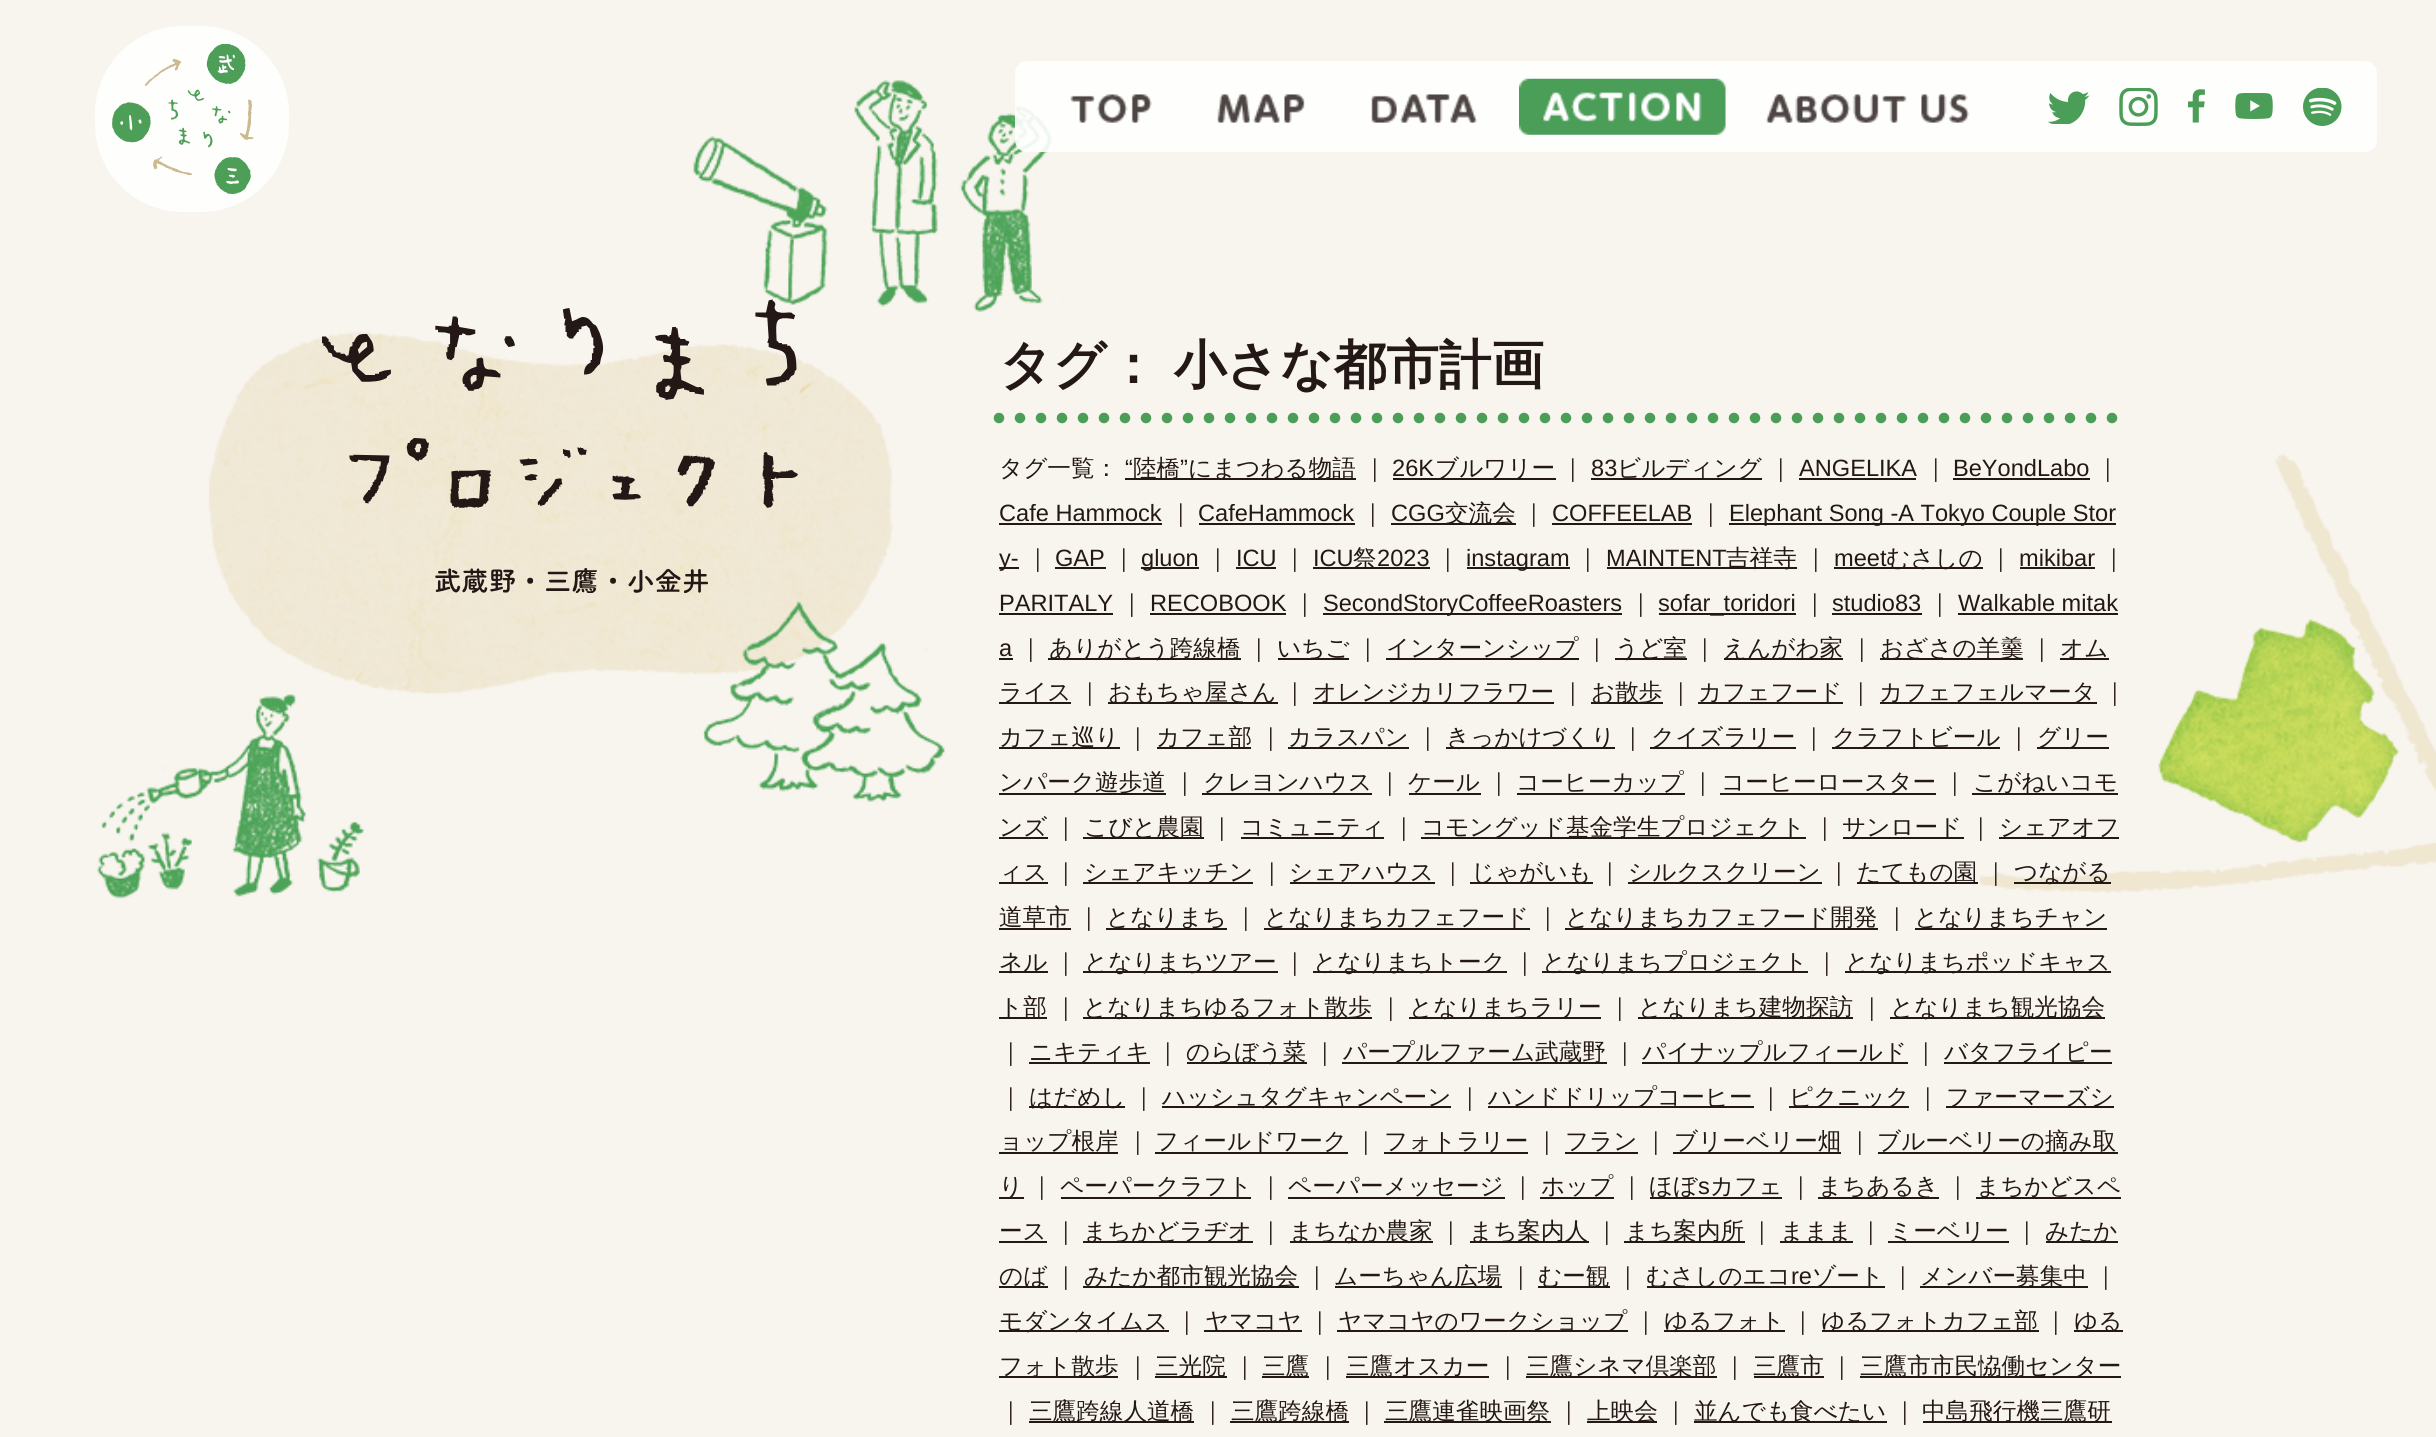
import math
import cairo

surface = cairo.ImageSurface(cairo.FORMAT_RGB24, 2436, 1437)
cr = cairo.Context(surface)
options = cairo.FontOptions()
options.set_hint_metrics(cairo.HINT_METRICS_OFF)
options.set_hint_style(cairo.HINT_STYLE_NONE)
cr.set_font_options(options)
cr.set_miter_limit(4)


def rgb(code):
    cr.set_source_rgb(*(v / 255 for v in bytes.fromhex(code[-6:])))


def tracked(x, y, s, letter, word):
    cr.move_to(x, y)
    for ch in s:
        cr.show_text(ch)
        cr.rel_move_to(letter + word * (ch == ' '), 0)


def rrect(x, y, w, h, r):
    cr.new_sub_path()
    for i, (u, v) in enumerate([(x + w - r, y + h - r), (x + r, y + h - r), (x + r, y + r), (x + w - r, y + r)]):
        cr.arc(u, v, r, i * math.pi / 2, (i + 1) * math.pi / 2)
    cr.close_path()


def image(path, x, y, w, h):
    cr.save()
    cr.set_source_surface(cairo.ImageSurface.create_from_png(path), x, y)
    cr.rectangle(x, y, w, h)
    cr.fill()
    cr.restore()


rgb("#f8f4ee")
cr.paint()
image("img/1.png", 96, 80, 2340, 819)
rgb("#fefefd")
rrect(95, 26, 194, 186, 88)
cr.fill()
image("img/2.png", 112, 44, 142, 150)
cr.set_source_rgba(1, 1, 1, 0.9)
rrect(1015, 61, 1362, 91, 12)
cr.fill()
image("img/3.png", 1070, 94, 82, 29)
image("img/4.png", 1217, 94, 88, 29)
image("img/5.png", 1371, 94, 107, 29)
image("img/6.png", 1519, 78, 207, 57)
image("img/7.png", 1765, 94, 205, 29)
image("img/8.png", 2048, 91, 42, 33)
image("img/9.png", 2119, 88, 39, 38)
image("img/10.png", 2188, 89, 17, 34)
image("img/11.png", 2235, 93, 38, 26)
image("img/12.png", 2303, 88, 39, 38)
image("img/13.png", 322, 299, 476, 294)
cr.new_path()
cr.move_to(999, 418)
cr.line_to(2126, 418)
rgb("#4b9e57")
cr.set_line_width(10.5)
cr.set_line_cap(cairo.LINE_CAP_ROUND)
cr.set_dash([0, 21])
cr.stroke()
for x, y, w, h, color in [
    (1125, 478, 231, 2, "#231815"),
    (1393, 478, 163, 2, "#231815"),
    (1591, 478, 171, 2, "#231815"),
    (1799, 478, 117, 2, "#231815"),
    (1953, 478, 137, 2, "#231815"),
    (999, 523, 163, 2, "#231815"),
    (1199, 523, 156, 2, "#231815"),
    (1391, 523, 125, 2, "#231815"),
    (1552, 523, 140, 2, "#231815"),
    (1729, 523, 387, 2, "#231815"),
    (999, 567, 20, 2, "#231815"),
    (1055, 567, 51, 2, "#231815"),
    (1141, 567, 58, 2, "#231815"),
    (1236, 567, 40, 2, "#231815"),
    (1313, 567, 117, 2, "#231815"),
    (1467, 567, 103, 2, "#231815"),
    (1607, 567, 190, 2, "#231815"),
    (1834, 567, 149, 2, "#231815"),
    (2020, 567, 75, 2, "#231815"),
    (999, 613, 114, 2, "#231815"),
    (1150, 613, 136, 2, "#231815"),
    (1323, 613, 299, 2, "#231815"),
    (1659, 613, 137, 2, "#231815"),
    (1832, 613, 90, 2, "#231815"),
    (1958, 613, 160, 2, "#231815"),
    (999, 658, 14, 2, "#231815"),
    (1048, 658, 193, 2, "#231815"),
    (1278, 658, 71, 2, "#231815"),
    (1386, 658, 193, 2, "#231815"),
    (1615, 658, 72, 2, "#231815"),
    (1724, 658, 119, 2, "#231815"),
    (1880, 658, 143, 2, "#231815"),
    (2060, 658, 49, 2, "#231815"),
    (999, 702, 72, 2, "#231815"),
    (1108, 702, 170, 2, "#231815"),
    (1313, 702, 241, 2, "#231815"),
    (1591, 702, 72, 2, "#231815"),
    (1698, 702, 145, 2, "#231815"),
    (1880, 702, 217, 2, "#231815"),
    (999, 747, 121, 2, "#231815"),
    (1157, 747, 94, 2, "#231815"),
    (1288, 747, 121, 2, "#231815"),
    (1446, 747, 169, 2, "#231815"),
    (1650, 747, 146, 2, "#231815"),
    (1832, 747, 168, 2, "#231815"),
    (2037, 747, 72, 2, "#231815"),
    (999, 793, 167, 2, "#231815"),
    (1202, 793, 170, 2, "#231815"),
    (1409, 793, 72, 2, "#231815"),
    (1517, 793, 168, 2, "#231815"),
    (1720, 793, 216, 2, "#231815"),
    (1972, 793, 146, 2, "#231815"),
    (999, 837, 49, 2, "#231815"),
    (1083, 837, 121, 2, "#231815"),
    (1241, 837, 143, 2, "#231815"),
    (1421, 837, 385, 2, "#231815"),
    (1843, 837, 121, 2, "#231815"),
    (1999, 837, 120, 2, "#231815"),
    (999, 882, 49, 2, "#231815"),
    (1083, 882, 170, 2, "#231815"),
    (1290, 882, 145, 2, "#231815"),
    (1470, 882, 123, 2, "#231815"),
    (1628, 882, 194, 2, "#231815"),
    (1857, 882, 121, 2, "#231815"),
    (2014, 882, 97, 2, "#231815"),
    (999, 928, 72, 2, "#231815"),
    (1106, 928, 121, 2, "#231815"),
    (1264, 928, 266, 2, "#231815"),
    (1565, 928, 313, 2, "#231815"),
    (1915, 928, 192, 2, "#231815"),
    (999, 971, 49, 2, "#231815"),
    (1083, 971, 195, 2, "#231815"),
    (1313, 971, 194, 2, "#231815"),
    (1542, 971, 266, 2, "#231815"),
    (1845, 971, 266, 2, "#231815"),
    (999, 1017, 48, 2, "#231815"),
    (1083, 1017, 289, 2, "#231815"),
    (1409, 1017, 192, 2, "#231815"),
    (1638, 1017, 215, 2, "#231815"),
    (1890, 1017, 215, 2, "#231815"),
    (1029, 1062, 121, 2, "#231815"),
    (1187, 1062, 120, 2, "#231815"),
    (1342, 1062, 265, 2, "#231815"),
    (1642, 1062, 266, 2, "#231815"),
    (1944, 1062, 168, 2, "#231815"),
    (1029, 1106, 96, 2, "#231815"),
    (1162, 1106, 289, 2, "#231815"),
    (1488, 1106, 266, 2, "#231815"),
    (1789, 1106, 120, 2, "#231815"),
    (1946, 1106, 168, 2, "#231815"),
    (999, 1152, 119, 2, "#231815"),
    (1155, 1152, 193, 2, "#231815"),
    (1384, 1152, 144, 2, "#231815"),
    (1565, 1152, 73, 2, "#231815"),
    (1673, 1152, 168, 2, "#231815"),
    (1878, 1152, 240, 2, "#231815"),
    (999, 1197, 25, 2, "#231815"),
    (1061, 1197, 190, 2, "#231815"),
    (1288, 1197, 217, 2, "#231815"),
    (1540, 1197, 74, 2, "#231815"),
    (1650, 1197, 132, 2, "#231815"),
    (1818, 1197, 121, 2, "#231815"),
    (1976, 1197, 145, 2, "#231815"),
    (999, 1241, 48, 2, "#231815"),
    (1083, 1241, 170, 2, "#231815"),
    (1290, 1241, 143, 2, "#231815"),
    (1470, 1241, 119, 2, "#231815"),
    (1624, 1241, 121, 2, "#231815"),
    (1780, 1241, 73, 2, "#231815"),
    (1888, 1241, 121, 2, "#231815"),
    (2046, 1241, 72, 2, "#231815"),
    (999, 1286, 49, 2, "#231815"),
    (1083, 1286, 216, 2, "#231815"),
    (1335, 1286, 167, 2, "#231815"),
    (1538, 1286, 72, 2, "#231815"),
    (1647, 1286, 238, 2, "#231815"),
    (1920, 1286, 168, 2, "#231815"),
    (999, 1330, 170, 2, "#231815"),
    (1204, 1330, 98, 2, "#231815"),
    (1337, 1330, 291, 2, "#231815"),
    (1664, 1330, 121, 2, "#231815"),
    (1822, 1330, 217, 2, "#231815"),
    (2074, 1330, 49, 2, "#231815"),
    (999, 1376, 119, 2, "#231815"),
    (1155, 1376, 72, 2, "#231815"),
    (1262, 1376, 47, 2, "#231815"),
    (1346, 1376, 143, 2, "#231815"),
    (1526, 1376, 191, 2, "#231815"),
    (1754, 1376, 70, 2, "#231815"),
    (1860, 1376, 261, 2, "#231815"),
    (1029, 1421, 165, 2, "#231815"),
    (1230, 1421, 119, 2, "#231815"),
    (1384, 1421, 167, 2, "#231815"),
    (1587, 1421, 70, 2, "#231815"),
    (1694, 1421, 193, 2, "#231815"),
    (1923, 1421, 189, 2, "#231815"),
]:
    rgb(color)
    cr.rectangle(x, y, w, h)
    cr.fill()
cr.select_font_face("WenQuanYi Zen Hei", cairo.FONT_SLANT_NORMAL, cairo.FONT_WEIGHT_BOLD)
cr.set_font_size(52.5)
tracked(999, 383, "タグ： 小さな都市計画", 0, -1)
cr.select_font_face("WenQuanYi Zen Hei Medium")
cr.set_font_size(23.6)
cr.move_to(999, 476)
cr.show_text("タグ一覧：")
cr.select_font_face("Liberation Sans")
cr.move_to(1125, 476)
cr.show_text("“")
cr.select_font_face("WenQuanYi Zen Hei Medium")
cr.move_to(1133, 476)
cr.show_text("陸橋")
cr.select_font_face("Liberation Sans")
cr.move_to(1180, 476)
cr.show_text("”")
cr.select_font_face("WenQuanYi Zen Hei Medium")
cr.move_to(1188, 476)
cr.show_text("にまつわる物語")
cr.move_to(1363, 476)
cr.show_text("｜")
cr.select_font_face("Liberation Sans")
cr.move_to(1392, 476)
cr.show_text("26K")
cr.select_font_face("WenQuanYi Zen Hei Medium")
cr.move_to(1435, 476)
cr.show_text("ブルワリー")
cr.move_to(1561, 476)
cr.show_text("｜")
cr.select_font_face("Liberation Sans")
cr.move_to(1591, 476)
cr.show_text("83")
cr.select_font_face("WenQuanYi Zen Hei Medium")
cr.move_to(1617, 476)
cr.show_text("ビルディング")
cr.move_to(1769, 476)
cr.show_text("｜")
cr.select_font_face("Liberation Sans")
cr.move_to(1799, 476)
cr.show_text("ANGELIKA")
cr.select_font_face("WenQuanYi Zen Hei Medium")
cr.move_to(1924, 476)
cr.show_text("｜")
cr.select_font_face("Liberation Sans")
cr.move_to(1953, 476)
cr.show_text("BeYondLabo")
cr.select_font_face("WenQuanYi Zen Hei Medium")
cr.move_to(2096, 476)
cr.show_text("｜")
cr.select_font_face("Liberation Sans")
cr.move_to(999, 521)
cr.show_text("Cafe Hammock")
cr.select_font_face("WenQuanYi Zen Hei Medium")
cr.move_to(1169, 521)
cr.show_text("｜")
cr.select_font_face("Liberation Sans")
cr.move_to(1198, 521)
cr.show_text("CafeHammock")
cr.select_font_face("WenQuanYi Zen Hei Medium")
cr.move_to(1361, 521)
cr.show_text("｜")
cr.select_font_face("Liberation Sans")
cr.move_to(1391, 521)
cr.show_text("CGG")
cr.select_font_face("WenQuanYi Zen Hei Medium")
cr.move_to(1445, 521)
cr.show_text("交流会")
cr.move_to(1522, 521)
cr.show_text("｜")
cr.select_font_face("Liberation Sans")
cr.move_to(1552, 521)
cr.show_text("COFFEELAB")
cr.select_font_face("WenQuanYi Zen Hei Medium")
cr.move_to(1699, 521)
cr.show_text("｜")
cr.select_font_face("Liberation Sans")
cr.move_to(1729, 521)
cr.show_text("Elephant Song -A Tokyo Couple Stor")
cr.move_to(999, 566)
cr.show_text("y-")
cr.select_font_face("WenQuanYi Zen Hei Medium")
cr.move_to(1026, 566)
cr.show_text("｜")
cr.select_font_face("Liberation Sans")
cr.move_to(1055, 566)
cr.show_text("GAP")
cr.select_font_face("WenQuanYi Zen Hei Medium")
cr.move_to(1112, 566)
cr.show_text("｜")
cr.select_font_face("Liberation Sans")
cr.move_to(1141, 566)
cr.show_text("gluon")
cr.select_font_face("WenQuanYi Zen Hei Medium")
cr.move_to(1206, 566)
cr.show_text("｜")
cr.select_font_face("Liberation Sans")
cr.move_to(1236, 566)
cr.show_text("ICU")
cr.select_font_face("WenQuanYi Zen Hei Medium")
cr.move_to(1283, 566)
cr.show_text("｜")
cr.select_font_face("Liberation Sans")
cr.move_to(1313, 566)
cr.show_text("ICU")
cr.select_font_face("WenQuanYi Zen Hei Medium")
cr.move_to(1353, 566)
cr.show_text("祭")
cr.select_font_face("Liberation Sans")
cr.move_to(1377, 566)
cr.show_text("2023")
cr.select_font_face("WenQuanYi Zen Hei Medium")
cr.move_to(1436, 566)
cr.show_text("｜")
cr.select_font_face("Liberation Sans")
cr.move_to(1466, 566)
cr.show_text("instagram")
cr.select_font_face("WenQuanYi Zen Hei Medium")
cr.move_to(1576, 566)
cr.show_text("｜")
cr.select_font_face("Liberation Sans")
cr.move_to(1606, 566)
cr.show_text("MAINTENT")
cr.select_font_face("WenQuanYi Zen Hei Medium")
cr.move_to(1726, 566)
cr.show_text("吉祥寺")
cr.move_to(1804, 566)
cr.show_text("｜")
cr.select_font_face("Liberation Sans")
cr.move_to(1834, 566)
cr.show_text("meet")
cr.select_font_face("WenQuanYi Zen Hei Medium")
cr.move_to(1886, 566)
cr.show_text("むさしの")
cr.move_to(1989, 566)
cr.show_text("｜")
cr.select_font_face("Liberation Sans")
cr.move_to(2019, 566)
cr.show_text("mikibar")
cr.select_font_face("WenQuanYi Zen Hei Medium")
cr.move_to(2102, 566)
cr.show_text("｜")
cr.select_font_face("Liberation Sans")
cr.move_to(999, 611)
cr.show_text("PARITALY")
cr.select_font_face("WenQuanYi Zen Hei Medium")
cr.move_to(1120, 611)
cr.show_text("｜")
cr.select_font_face("Liberation Sans")
cr.move_to(1150, 611)
cr.show_text("RECOBOOK")
cr.select_font_face("WenQuanYi Zen Hei Medium")
cr.move_to(1293, 611)
cr.show_text("｜")
cr.select_font_face("Liberation Sans")
cr.move_to(1323, 611)
cr.show_text("SecondStoryCoffeeRoasters")
cr.select_font_face("WenQuanYi Zen Hei Medium")
cr.move_to(1629, 611)
cr.show_text("｜")
cr.select_font_face("Liberation Sans")
cr.move_to(1658, 611)
cr.show_text("sofar_toridori")
cr.select_font_face("WenQuanYi Zen Hei Medium")
cr.move_to(1803, 611)
cr.show_text("｜")
cr.select_font_face("Liberation Sans")
cr.move_to(1832, 611)
cr.show_text("studio83")
cr.select_font_face("WenQuanYi Zen Hei Medium")
cr.move_to(1928, 611)
cr.show_text("｜")
cr.select_font_face("Liberation Sans")
cr.move_to(1958, 611)
cr.show_text("Walkable mitak")
cr.move_to(999, 656)
cr.show_text("a")
cr.select_font_face("WenQuanYi Zen Hei Medium")
for x, y, s in [
    (1019, 656, "｜"),
    (1049, 656, "ありがとう跨線橋"),
    (1247, 656, "｜"),
    (1277, 656, "いちご"),
    (1356, 656, "｜"),
    (1386, 656, "インターンシップ"),
    (1585, 656, "｜"),
    (1615, 656, "うど室"),
    (1693, 656, "｜"),
    (1723, 656, "えんがわ家"),
    (1850, 656, "｜"),
    (1880, 656, "おざさの羊羹"),
    (2030, 656, "｜"),
    (2060, 656, "オム"),
    (999, 700, "ライス"),
    (1078, 700, "｜"),
    (1108, 700, "おもちゃ屋さん"),
    (1283, 700, "｜"),
    (1313, 700, "オレンジカリフラワー"),
    (1561, 700, "｜"),
    (1591, 700, "お散歩"),
    (1669, 700, "｜"),
    (1698, 700, "カフェフード"),
    (1849, 700, "｜"),
    (1879, 700, "カフェフェルマータ"),
    (2103, 700, "｜"),
    (999, 745, "カフェ巡り"),
    (1126, 745, "｜"),
    (1156, 745, "カフェ部"),
    (1259, 745, "｜"),
    (1288, 745, "カラスパン"),
    (1416, 745, "｜"),
    (1446, 745, "きっかけづくり"),
    (1621, 745, "｜"),
    (1651, 745, "クイズラリー"),
    (1802, 745, "｜"),
    (1832, 745, "クラフトビール"),
    (2007, 745, "｜"),
    (2037, 745, "グリー"),
    (999, 790, "ンパーク遊歩道"),
    (1173, 790, "｜"),
    (1203, 790, "クレヨンハウス"),
    (1378, 790, "｜"),
    (1408, 790, "ケール"),
    (1487, 790, "｜"),
    (1516, 790, "コーヒーカップ"),
    (1691, 790, "｜"),
    (1721, 790, "コーヒーロースター"),
    (1943, 790, "｜"),
    (1973, 790, "こがねいコモ"),
    (999, 835, "ンズ"),
    (1054, 835, "｜"),
    (1084, 835, "こびと農園"),
    (1210, 835, "｜"),
    (1240, 835, "コミュニティ"),
    (1392, 835, "｜"),
    (1421, 835, "コモングッド基金学生プロジェクト"),
    (1813, 835, "｜"),
    (1842, 835, "サンロード"),
    (1969, 835, "｜"),
    (1999, 835, "シェアオフ"),
    (999, 880, "ィス"),
    (1054, 880, "｜"),
    (1084, 880, "シェアキッチン"),
    (1260, 880, "｜"),
    (1289, 880, "シェアハウス"),
    (1441, 880, "｜"),
    (1471, 880, "じゃがいも"),
    (1598, 880, "｜"),
    (1628, 880, "シルクスクリーン"),
    (1827, 880, "｜"),
    (1857, 880, "たてもの園"),
    (1984, 880, "｜"),
    (2014, 880, "つながる"),
    (999, 925, "道草市"),
    (1077, 925, "｜"),
    (1106, 925, "となりまち"),
    (1234, 925, "｜"),
    (1264, 925, "となりまちカフェフード"),
    (1536, 925, "｜"),
    (1565, 925, "となりまちカフェフード開発"),
    (1885, 925, "｜"),
    (1914, 925, "となりまちチャン"),
    (999, 970, "ネル"),
    (1054, 970, "｜"),
    (1084, 970, "となりまちツアー"),
    (1283, 970, "｜"),
    (1313, 970, "となりまちトーク"),
    (1513, 970, "｜"),
    (1542, 970, "となりまちプロジェクト"),
    (1815, 970, "｜"),
    (1845, 970, "となりまちポッドキャス"),
    (999, 1015, "ト部"),
    (1054, 1015, "｜"),
    (1083, 1015, "となりまちゆるフォト散歩"),
    (1379, 1015, "｜"),
    (1409, 1015, "となりまちラリー"),
    (1608, 1015, "｜"),
    (1638, 1015, "となりまち建物探訪"),
    (1860, 1015, "｜"),
    (1890, 1015, "となりまち観光協会"),
    (999, 1060, "｜"),
    (1029, 1060, "ニキティキ"),
    (1156, 1060, "｜"),
    (1186, 1060, "のらぼう菜"),
    (1313, 1060, "｜"),
    (1343, 1060, "パープルファーム武蔵野"),
    (1613, 1060, "｜"),
    (1642, 1060, "パイナップルフィールド"),
    (1914, 1060, "｜"),
    (1944, 1060, "バタフライピー"),
    (999, 1105, "｜"),
    (1029, 1105, "はだめし"),
    (1132, 1105, "｜"),
    (1162, 1105, "ハッシュタグキャンペーン"),
    (1458, 1105, "｜"),
    (1488, 1105, "ハンドドリップコーヒー"),
    (1759, 1105, "｜"),
    (1789, 1105, "ピクニック"),
    (1916, 1105, "｜"),
    (1946, 1105, "ファーマーズシ"),
    (999, 1149, "ョップ根岸"),
    (1126, 1149, "｜"),
    (1155, 1149, "フィールドワーク"),
    (1354, 1149, "｜"),
    (1384, 1149, "フォトラリー"),
    (1535, 1149, "｜"),
    (1565, 1149, "フラン"),
    (1644, 1149, "｜"),
    (1674, 1149, "ブリーベリー畑"),
    (1848, 1149, "｜"),
    (1877, 1149, "ブルーベリーの摘み取"),
    (999, 1194, "り"),
    (1030, 1194, "｜"),
    (1060, 1194, "ペーパークラフト"),
    (1259, 1194, "｜"),
    (1288, 1194, "ペーパーメッセージ"),
    (1511, 1194, "｜"),
    (1541, 1194, "ホップ"),
    (1620, 1194, "｜"),
    (1649, 1194, "ほぼ"),
]:
    cr.move_to(x, y)
    cr.show_text(s)
cr.select_font_face("Liberation Sans")
cr.move_to(1698, 1194)
cr.show_text("s")
cr.select_font_face("WenQuanYi Zen Hei Medium")
for x, y, s in [
    (1710, 1194, "カフェ"),
    (1789, 1194, "｜"),
    (1818, 1194, "まちあるき"),
    (1946, 1194, "｜"),
    (1976, 1194, "まちかどスペ"),
    (999, 1239, "ース"),
    (1054, 1239, "｜"),
    (1083, 1239, "まちかどラヂオ"),
    (1259, 1239, "｜"),
    (1289, 1239, "まちなか農家"),
    (1439, 1239, "｜"),
    (1469, 1239, "まち案内人"),
    (1595, 1239, "｜"),
    (1625, 1239, "まち案内所"),
    (1750, 1239, "｜"),
    (1780, 1239, "ままま"),
    (1859, 1239, "｜"),
    (1889, 1239, "ミーベリー"),
    (2015, 1239, "｜"),
    (2045, 1239, "みたか"),
    (999, 1284, "のば"),
    (1054, 1284, "｜"),
    (1084, 1284, "みたか都市観光協会"),
    (1305, 1284, "｜"),
    (1334, 1284, "ムーちゃん広場"),
    (1509, 1284, "｜"),
    (1538, 1284, "むー観"),
    (1616, 1284, "｜"),
    (1646, 1284, "むさしのエコ"),
]:
    cr.move_to(x, y)
    cr.show_text(s)
cr.select_font_face("Liberation Sans")
cr.move_to(1791, 1284)
cr.show_text("re")
cr.select_font_face("WenQuanYi Zen Hei Medium")
for x, y, s in [
    (1812, 1284, "ゾート"),
    (1891, 1284, "｜"),
    (1920, 1284, "メンバー募集中"),
    (2094, 1284, "｜"),
    (999, 1329, "モダンタイムス"),
    (1175, 1329, "｜"),
    (1205, 1329, "ヤマコヤ"),
    (1308, 1329, "｜"),
    (1338, 1329, "ヤマコヤのワークショップ"),
    (1634, 1329, "｜"),
    (1664, 1329, "ゆるフォト"),
    (1791, 1329, "｜"),
    (1821, 1329, "ゆるフォトカフェ部"),
    (2044, 1329, "｜"),
    (2074, 1329, "ゆる"),
    (999, 1374, "フォト散歩"),
    (1126, 1374, "｜"),
    (1155, 1374, "三光院"),
    (1233, 1374, "｜"),
    (1262, 1374, "三鷹"),
    (1316, 1374, "｜"),
    (1346, 1374, "三鷹オスカー"),
    (1496, 1374, "｜"),
    (1526, 1374, "三鷹シネマ倶楽部"),
    (1723, 1374, "｜"),
    (1753, 1374, "三鷹市"),
    (1830, 1374, "｜"),
    (1860, 1374, "三鷹市市民恊働センター"),
    (999, 1419, "｜"),
    (1029, 1419, "三鷹跨線人道橋"),
    (1201, 1419, "｜"),
    (1231, 1419, "三鷹跨線橋"),
    (1355, 1419, "｜"),
    (1385, 1419, "三鷹連雀映画祭"),
    (1557, 1419, "｜"),
    (1587, 1419, "上映会"),
    (1664, 1419, "｜"),
    (1694, 1419, "並んでも食べたい"),
    (1893, 1419, "｜"),
    (1922, 1419, "中島飛行機三鷹研"),
]:
    cr.move_to(x, y)
    cr.show_text(s)
surface.write_to_png("page.png")
